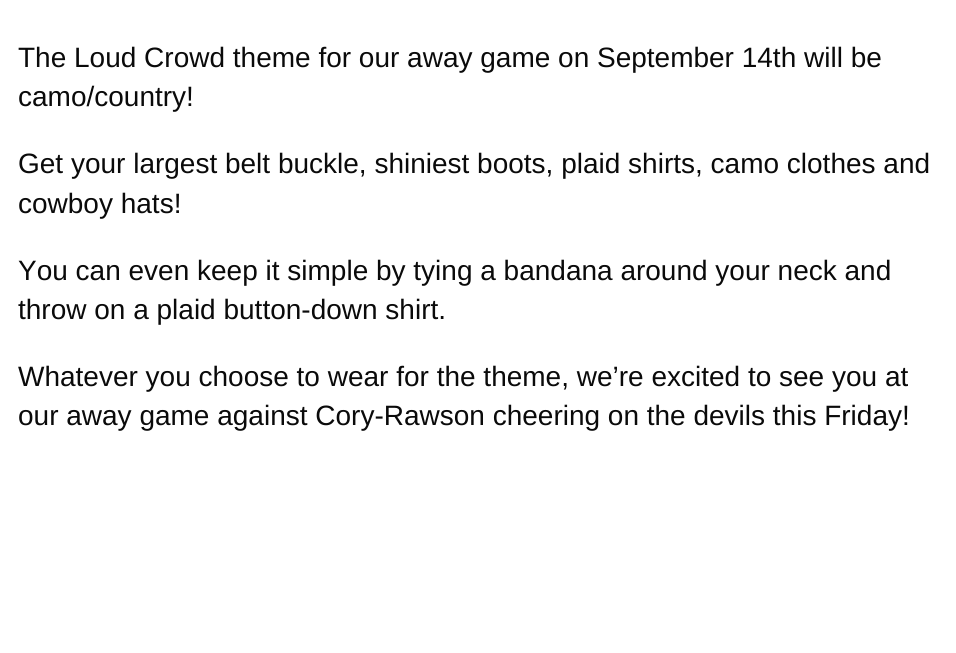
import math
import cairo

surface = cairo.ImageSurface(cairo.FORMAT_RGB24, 956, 653)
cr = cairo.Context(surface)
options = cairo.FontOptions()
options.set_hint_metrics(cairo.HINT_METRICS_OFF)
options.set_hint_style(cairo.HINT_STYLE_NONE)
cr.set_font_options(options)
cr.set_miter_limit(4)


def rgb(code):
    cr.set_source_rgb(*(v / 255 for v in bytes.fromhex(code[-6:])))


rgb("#ffffff")
cr.paint()
cr.select_font_face("Liberation Sans")
cr.set_font_size(28)
rgb("#0a0a0a")
for x, y, s in [
    (18, 67, "The Loud Crowd theme for our away game on September 14th will be"),
    (18, 106, "camo/country!"),
    (18, 173, "Get your largest belt buckle, shiniest boots, plaid shirts, camo clothes and"),
    (18, 213, "cowboy hats!"),
    (18, 280, "You can even keep it simple by tying a bandana around your neck and"),
    (18, 319, "throw on a plaid button-down shirt."),
    (18, 386, "Whatever you choose to wear for the theme, we’re excited to see you at"),
    (18, 425, "our away game against Cory-Rawson cheering on the devils this Friday!"),
]:
    cr.move_to(x, y)
    cr.show_text(s)
surface.write_to_png("page.png")
